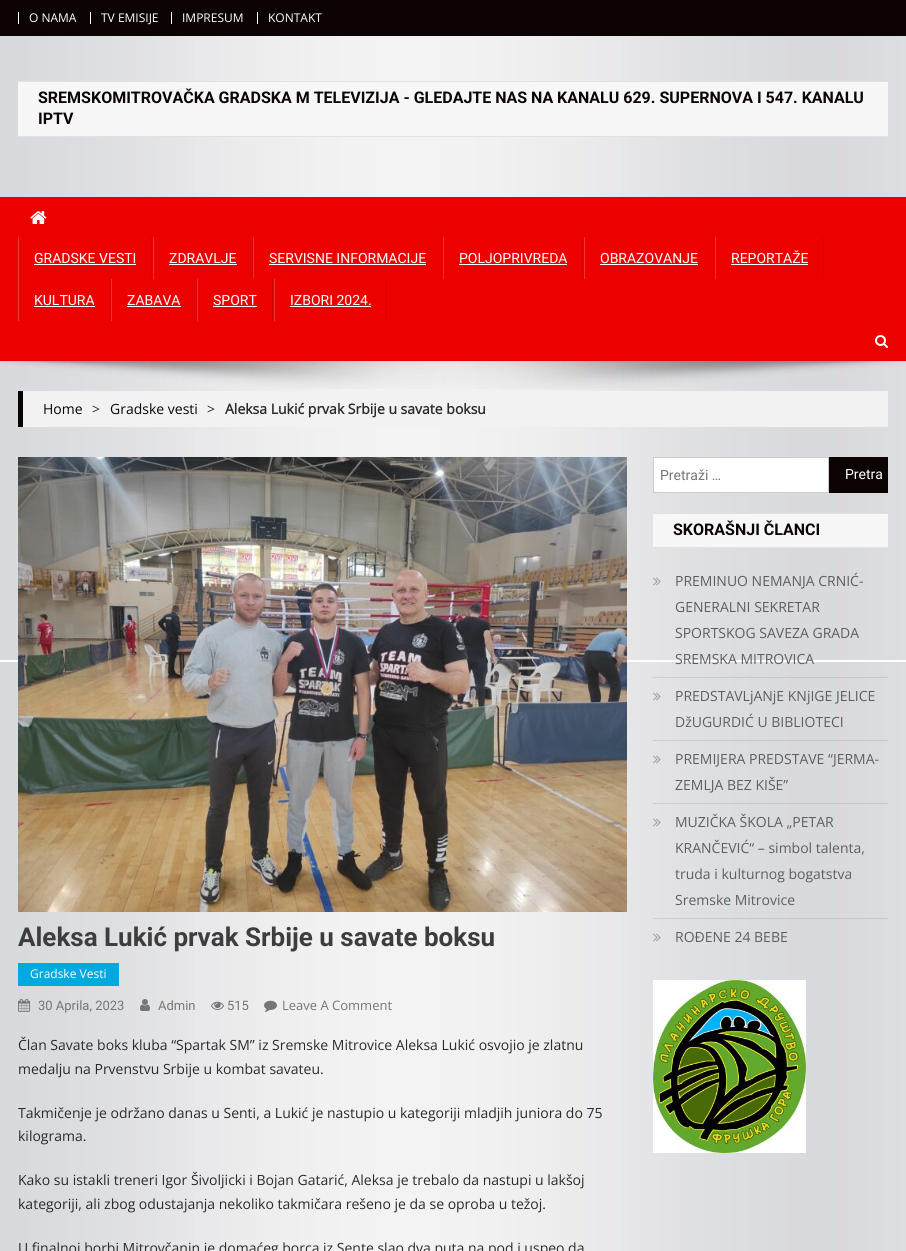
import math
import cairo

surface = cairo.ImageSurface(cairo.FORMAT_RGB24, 906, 1251)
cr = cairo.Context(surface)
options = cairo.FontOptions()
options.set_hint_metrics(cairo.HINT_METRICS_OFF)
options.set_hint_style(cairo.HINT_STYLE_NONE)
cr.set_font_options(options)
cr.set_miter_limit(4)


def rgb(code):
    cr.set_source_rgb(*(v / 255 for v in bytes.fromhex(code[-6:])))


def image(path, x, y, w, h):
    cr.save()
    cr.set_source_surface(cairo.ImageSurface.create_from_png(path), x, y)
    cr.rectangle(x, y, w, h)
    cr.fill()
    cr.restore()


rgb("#ffffff")
cr.paint()
image("img/1.png", 0, 36, 906, 1215)
for x, y, w, h, color in [
    (0, 0, 906, 36, "#0c0404"),
    (18, 12, 1, 12, "#ffffff"),
    (90, 12, 1, 12, "#ffffff"),
    (171, 12, 1, 12, "#ffffff"),
    (257, 12, 1, 12, "#ffffff"),
    (18, 82, 870, 54, "#f7f7f7"),
    (18, 81, 870, 1, "#e1e1e1"),
    (18, 136, 870, 1, "#e1e1e1"),
    (0, 197, 906, 164, "#ed0000"),
]:
    rgb(color)
    cr.rectangle(x, y, w, h)
    cr.fill()
image("img/2.png", 30, 211, 17, 13)
for x, y, w, h, color in [
    (151, 237, 1, 42, "#da0000"),
    (18, 237, 1, 84, "#f13333"),
    (34, 264, 102, 1, "#ffffff"),
    (252, 237, 1, 42, "#da0000"),
    (153, 237, 1, 42, "#f13333"),
    (169, 264, 68, 1, "#ffffff"),
    (441, 237, 1, 42, "#da0000"),
    (253, 237, 1, 42, "#f13333"),
    (269, 264, 157, 1, "#ffffff"),
    (582, 237, 1, 42, "#da0000"),
    (443, 237, 1, 42, "#f13333"),
    (459, 264, 108, 1, "#ffffff"),
    (713, 237, 1, 42, "#da0000"),
    (584, 237, 1, 42, "#f13333"),
    (600, 264, 98, 1, "#ffffff"),
    (823, 237, 1, 42, "#da0000"),
    (715, 237, 1, 42, "#f13333"),
    (731, 264, 77, 1, "#ffffff"),
    (110, 279, 1, 42, "#da0000"),
    (34, 306, 61, 1, "#ffffff"),
    (196, 279, 1, 42, "#da0000"),
    (111, 279, 1, 42, "#f13333"),
    (127, 306, 54, 1, "#ffffff"),
    (272, 279, 1, 42, "#da0000"),
    (197, 279, 1, 42, "#f13333"),
    (213, 306, 44, 1, "#ffffff"),
    (386, 279, 1, 42, "#da0000"),
    (274, 279, 1, 42, "#f13333"),
    (290, 306, 81, 1, "#ffffff"),
]:
    rgb(color)
    cr.rectangle(x, y, w, h)
    cr.fill()
image("img/3.png", 875, 335, 13, 13)
image("img/4.png", 0, 361, 906, 28)
rgb("#f2f2f2")
cr.rectangle(23, 391, 865, 36)
cr.fill()
rgb("#0c0404")
cr.rectangle(18, 391, 5, 36)
cr.fill()
rgb("#ffffff")
cr.rectangle(653.5, 457.5, 175, 35)
cr.fill_preserve()
rgb("#cccccc")
cr.set_line_width(1)
cr.stroke()
rgb("#0c0404")
cr.rectangle(829, 457, 59, 36)
cr.fill()
rgb("#f7f7f7")
cr.rectangle(653, 514, 235, 33)
cr.fill()
rgb("#e1e1e1")
cr.rectangle(653, 513, 235, 1)
cr.rectangle(653, 547, 235, 1)
cr.fill()
cr.set_source_rgba(0, 0, 0, 0.1)
cr.rectangle(653, 677, 235, 1)
cr.fill()
image("img/5.png", 653, 577, 8, 9)
cr.rectangle(653, 740, 235, 1)
cr.fill()
image("img/5.png", 653, 692, 8, 9)
cr.rectangle(653, 803, 235, 1)
cr.fill()
image("img/5.png", 653, 755, 8, 9)
cr.rectangle(653, 918, 235, 1)
cr.fill()
image("img/5.png", 653, 818, 8, 9)
image("img/5.png", 653, 933, 8, 9)
image("img/6.png", 653, 980, 153, 173)
image("img/7.png", 18, 457, 609, 455)
rgb("#00a9e0")
cr.rectangle(18, 963, 101, 23)
cr.fill()
image("img/8.png", 18, 998, 13, 14)
image("img/9.png", 140, 999, 10, 12)
image("img/10.png", 211, 1001, 13, 9)
image("img/11.png", 264, 1000, 13, 12)
cr.select_font_face("Open Sans")
cr.set_font_size(12)
rgb("#ffffff")
for x, y, s in [
    (29, 22, "O NAMA"),
    (101, 22, "TV EMISIJE"),
    (182, 22, "IMPRESUM"),
    (268, 22, "KONTAKT"),
]:
    cr.move_to(x, y)
    cr.show_text(s)
cr.select_font_face("Roboto", cairo.FONT_SLANT_NORMAL, cairo.FONT_WEIGHT_BOLD)
cr.set_font_size(16)
rgb("#0c0404")
cr.move_to(38, 103)
cr.show_text("SREMSKOMITROVAČKA GRADSKA M TELEVIZIJA - GLEDAJTE NAS NA KANALU 629. SUPERNOVA I 547. KANALU")
cr.move_to(38, 124)
cr.show_text("IPTV")
cr.select_font_face("Roboto")
cr.set_font_size(14)
rgb("#ffffff")
for x, y, s in [
    (34, 263, "GRADSKE VESTI"),
    (169, 263, "ZDRAVLJE"),
    (269, 263, "SERVISNE INFORMACIJE"),
    (459, 263, "POLJOPRIVREDA"),
    (600, 263, "OBRAZOVANJE"),
    (731, 263, "REPORTAŽE"),
    (34, 305, "KULTURA"),
    (127, 305, "ZABAVA"),
    (213, 305, "SPORT"),
    (290, 305, "IZBORI 2024."),
]:
    cr.move_to(x, y)
    cr.show_text(s)
cr.select_font_face("Open Sans")
rgb("#0c0404")
cr.move_to(43, 414)
cr.show_text("Home")
rgb("#2b2b2b")
cr.move_to(92, 414)
cr.show_text(">")
rgb("#0c0404")
cr.move_to(110, 414)
cr.show_text("Gradske vesti")
rgb("#2b2b2b")
cr.move_to(207, 414)
cr.show_text(">")
cr.select_font_face("Open Sans", cairo.FONT_SLANT_NORMAL, cairo.FONT_WEIGHT_BOLD)
cr.move_to(225, 414)
cr.show_text("Aleksa Lukić prvak Srbije u savate boksu")
cr.select_font_face("Roboto")
rgb("#767676")
cr.move_to(660, 480)
cr.show_text("Pretraži …")
rgb("#ffffff")
cr.move_to(845, 479)
cr.show_text("Pretra")
cr.select_font_face("Roboto", cairo.FONT_SLANT_NORMAL, cairo.FONT_WEIGHT_BOLD)
cr.set_font_size(16)
rgb("#0c0404")
cr.move_to(673, 535)
cr.show_text("SKORAŠNJI ČLANCI")
cr.select_font_face("Open Sans")
cr.set_font_size(14)
rgb("#5f5f5f")
for x, y, s in [
    (675, 586, "PREMINUO NEMANJA CRNIĆ-"),
    (675, 612, "GENERALNI SEKRETAR"),
    (675, 638, "SPORTSKOG SAVEZA GRADA"),
    (675, 664, "SREMSKA MITROVICA"),
    (675, 701, "PREDSTAVLjANjE KNjIGE JELICE"),
    (675, 727, "DžUGURDIĆ U BIBLIOTECI"),
    (675, 764, "PREMIJERA PREDSTAVE “JERMA-"),
    (675, 790, "ZEMLJA BEZ KIŠE”"),
    (675, 827, "MUZIČKA ŠKOLA „PETAR"),
    (675, 853, "KRANČEVIĆ“ – simbol talenta,"),
    (675, 879, "truda i kulturnog bogatstva"),
    (675, 905, "Sremske Mitrovice"),
    (675, 942, "ROĐENE 24 BEBE"),
]:
    cr.move_to(x, y)
    cr.show_text(s)
cr.select_font_face("Roboto", cairo.FONT_SLANT_NORMAL, cairo.FONT_WEIGHT_BOLD)
cr.set_font_size(26)
rgb("#3d3d3d")
cr.move_to(18, 946)
cr.show_text("Aleksa Lukić prvak Srbije u savate boksu")
cr.select_font_face("Open Sans")
cr.set_font_size(12)
rgb("#ffffff")
cr.move_to(30, 978)
cr.show_text("Gradske Vesti")
cr.select_font_face("Roboto")
cr.set_font_size(13)
rgb("#767676")
for x, y, s in [
    (38, 1010, "30 Aprila, 2023"),
    (158, 1010, "Admin"),
    (227, 1010, "515"),
]:
    cr.move_to(x, y)
    cr.show_text(s)
cr.select_font_face("Open Sans")
cr.move_to(282, 1010)
cr.show_text("Leave A Comment")
cr.set_font_size(14)
rgb("#2b2b2b")
for x, y, s in [
    (18, 1050, "Član Savate boks kluba “Spartak SM” iz Sremske Mitrovice Aleksa Lukić osvojio je zlatnu"),
    (18, 1074, "medalju na Prvenstvu Srbije u kombat savateu."),
    (18, 1118, "Takmičenje je održano danas u Senti, a Lukić je nastupio u kategoriji mladjih juniora do 75"),
    (18, 1141, "kilograma."),
    (18, 1185, "Kako su istakli treneri Igor Šivoljicki i Bojan Gatarić, Aleksa je trebalo da nastupi u lakšoj"),
    (18, 1209, "kategoriji, ali zbog odustajanja nekoliko takmičara rešeno je da se oproba u težoj."),
    (18, 1253, "U finalnoj borbi Mitrovčanin je domaćeg borca iz Sente slao dva puta na pod i uspeo da"),
]:
    cr.move_to(x, y)
    cr.show_text(s)
surface.write_to_png("page.png")
